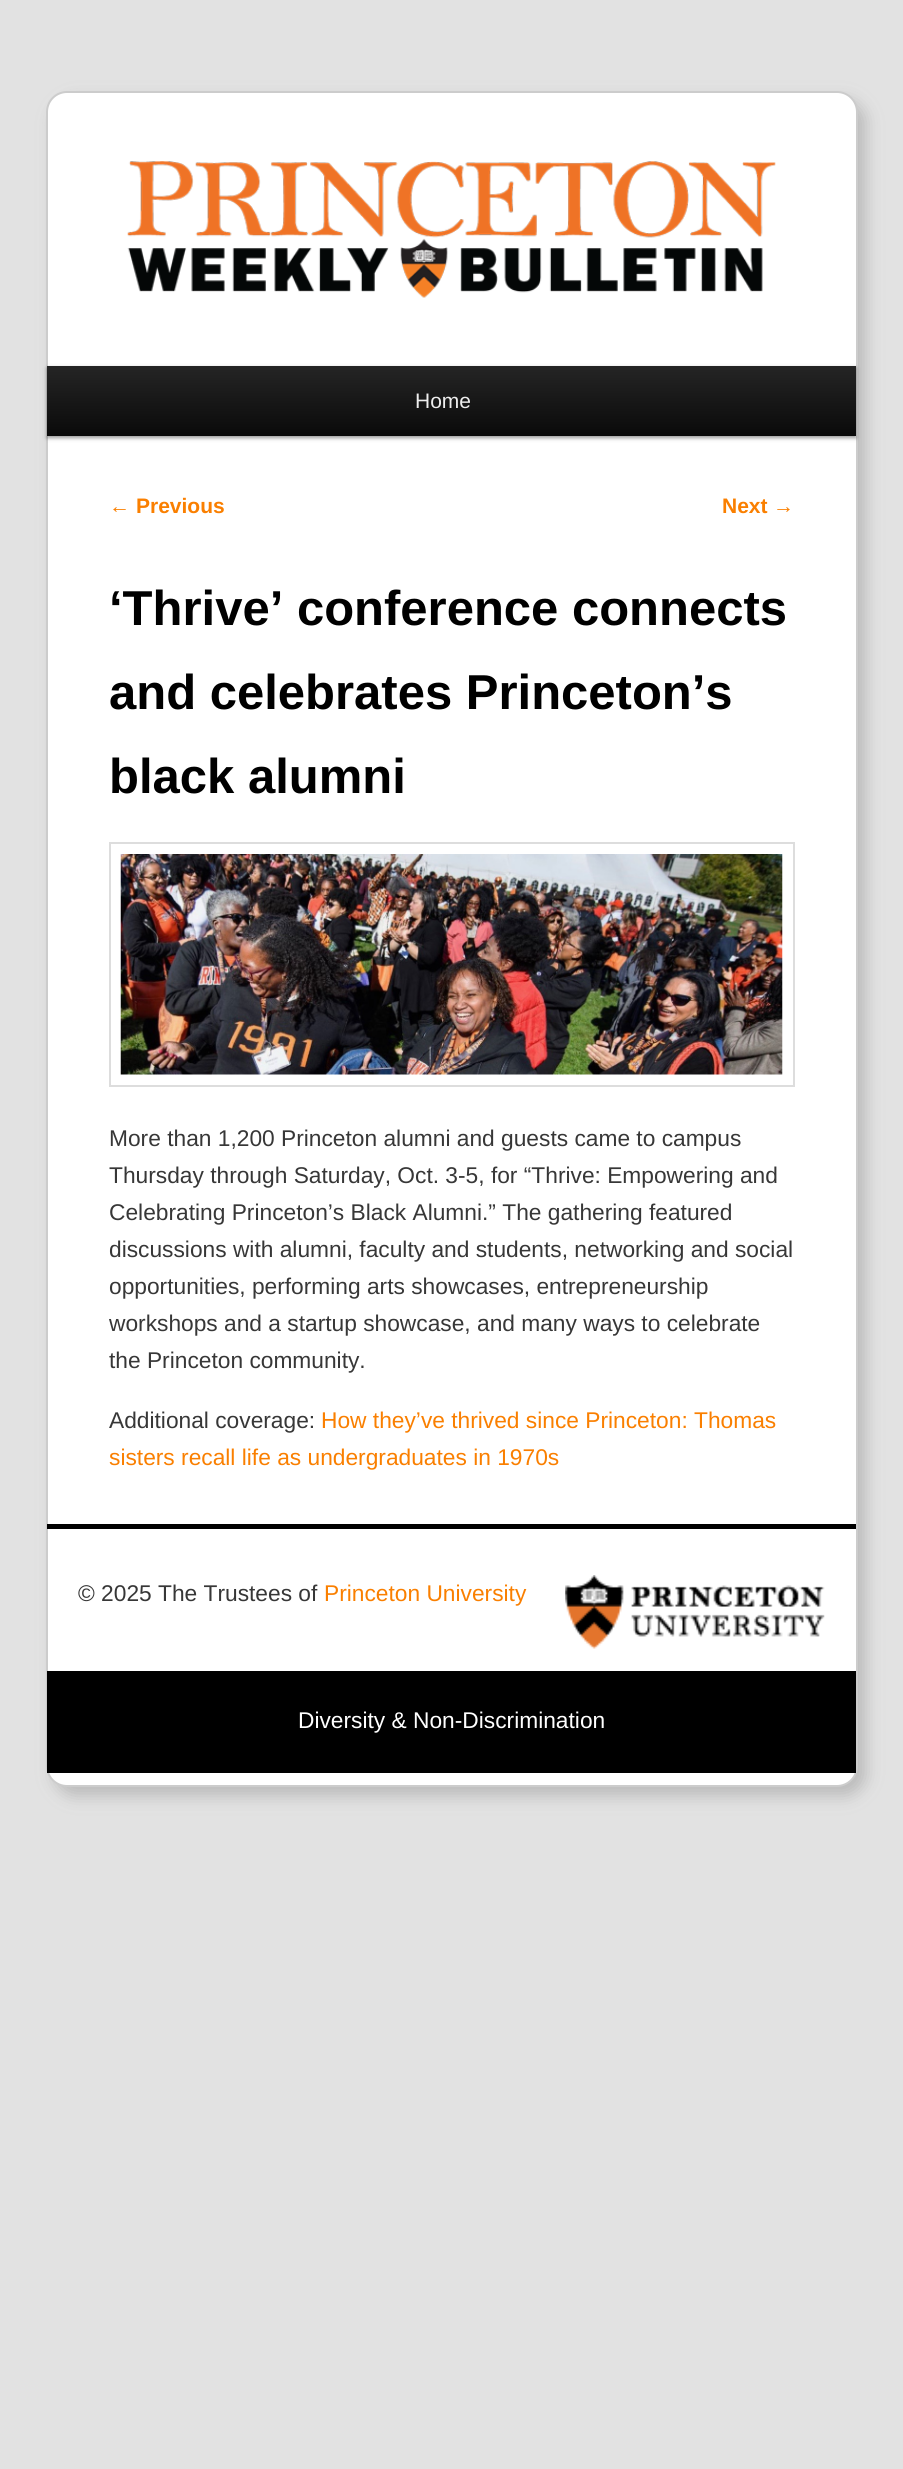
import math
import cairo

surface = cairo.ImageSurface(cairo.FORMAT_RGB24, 903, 2469)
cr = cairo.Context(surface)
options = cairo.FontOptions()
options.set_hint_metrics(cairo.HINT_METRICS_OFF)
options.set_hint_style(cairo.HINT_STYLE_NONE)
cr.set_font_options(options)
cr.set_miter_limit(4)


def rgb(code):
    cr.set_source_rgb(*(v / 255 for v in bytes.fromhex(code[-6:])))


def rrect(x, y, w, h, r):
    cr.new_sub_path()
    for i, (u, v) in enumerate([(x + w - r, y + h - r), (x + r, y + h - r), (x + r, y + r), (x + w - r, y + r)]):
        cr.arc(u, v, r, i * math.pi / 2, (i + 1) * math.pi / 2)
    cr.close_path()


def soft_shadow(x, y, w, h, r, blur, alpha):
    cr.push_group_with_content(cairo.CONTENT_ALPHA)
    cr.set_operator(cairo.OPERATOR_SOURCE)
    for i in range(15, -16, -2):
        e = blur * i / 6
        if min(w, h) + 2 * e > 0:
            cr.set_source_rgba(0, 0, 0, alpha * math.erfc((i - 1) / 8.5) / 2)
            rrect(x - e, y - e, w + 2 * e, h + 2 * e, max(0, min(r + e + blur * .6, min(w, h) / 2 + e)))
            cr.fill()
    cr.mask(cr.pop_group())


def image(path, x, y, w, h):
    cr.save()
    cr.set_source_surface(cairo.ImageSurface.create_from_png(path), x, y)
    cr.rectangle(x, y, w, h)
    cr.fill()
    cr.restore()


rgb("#e2e2e2")
cr.paint()
rgb("#bbbbbb")
soft_shadow(54, 100, 812, 1696, 21, 8, 1)
rgb("#ffffff")
rrect(47, 92, 810, 1694, 20)
cr.fill_preserve()
rgb("#cccccc")
cr.stroke()
image("img/1.png", 127, 161, 649, 137)
rgb("#000000")
soft_shadow(47, 368, 809, 70, 0, 2, 0.4)
gradient = cairo.LinearGradient(452, 366, 452, 436)
gradient.add_color_stop_rgba(0, 0.145, 0.145, 0.145, 1)
gradient.add_color_stop_rgba(1, 0.039, 0.039, 0.039, 1)
cr.set_source(gradient)
cr.rectangle(47, 366, 809, 70)
cr.fill()
cr.rectangle(110, 843, 684, 243)
rgb("#dddddd")
cr.stroke()
image("img/2.png", 120, 854, 663, 221)
rgb("#000000")
cr.rectangle(47, 1524, 809, 5)
cr.fill()
image("img/3.png", 565, 1575, 260, 74)
cr.rectangle(47, 1671, 809, 102)
cr.fill()
cr.select_font_face("Liberation Sans")
cr.set_font_size(21)
rgb("#eeeeee")
cr.move_to(415, 408)
cr.show_text("Home")
rgb("#fa7f00")
cr.move_to(109, 513)
cr.show_text("←")
cr.select_font_face("Liberation Sans", cairo.FONT_SLANT_NORMAL, cairo.FONT_WEIGHT_BOLD)
cr.move_to(136, 513)
cr.show_text("Previous")
cr.move_to(722, 513)
cr.show_text("Next")
cr.select_font_face("Liberation Sans")
cr.move_to(773, 513)
cr.show_text("→")
cr.select_font_face("Liberation Sans", cairo.FONT_SLANT_NORMAL, cairo.FONT_WEIGHT_BOLD)
cr.set_font_size(49)
rgb("#000000")
for x, y, s in [
    (109, 625, "‘Thrive’ conference connects"),
    (109, 709, "and celebrates Princeton’s"),
    (109, 793, "black alumni"),
]:
    cr.move_to(x, y)
    cr.show_text(s)
cr.select_font_face("Liberation Sans")
cr.set_font_size(22.75)
rgb("#373737")
for x, y, s in [
    (109, 1146, "More than 1,200 Princeton alumni and guests came to campus"),
    (109, 1183, "Thursday through Saturday, Oct. 3-5, for “Thrive: Empowering and"),
    (109, 1220, "Celebrating Princeton’s Black Alumni.” The gathering featured"),
    (109, 1257, "discussions with alumni, faculty and students, networking and social"),
    (109, 1294, "opportunities, performing arts showcases, entrepreneurship"),
    (109, 1331, "workshops and a startup showcase, and many ways to celebrate"),
    (109, 1368, "the Princeton community."),
    (109, 1428, "Additional coverage:"),
]:
    cr.move_to(x, y)
    cr.show_text(s)
rgb("#fa7f00")
cr.move_to(321, 1428)
cr.show_text("How they’ve thrived since Princeton: Thomas")
cr.move_to(109, 1465)
cr.show_text("sisters recall life as undergraduates in 1970s")
rgb("#373737")
cr.move_to(78, 1601)
cr.show_text("© 2025 The Trustees of")
rgb("#fa7f00")
cr.move_to(324, 1601)
cr.show_text("Princeton University")
rgb("#ffffff")
cr.move_to(298, 1728)
cr.show_text("Diversity & Non-Discrimination")
surface.write_to_png("page.png")
